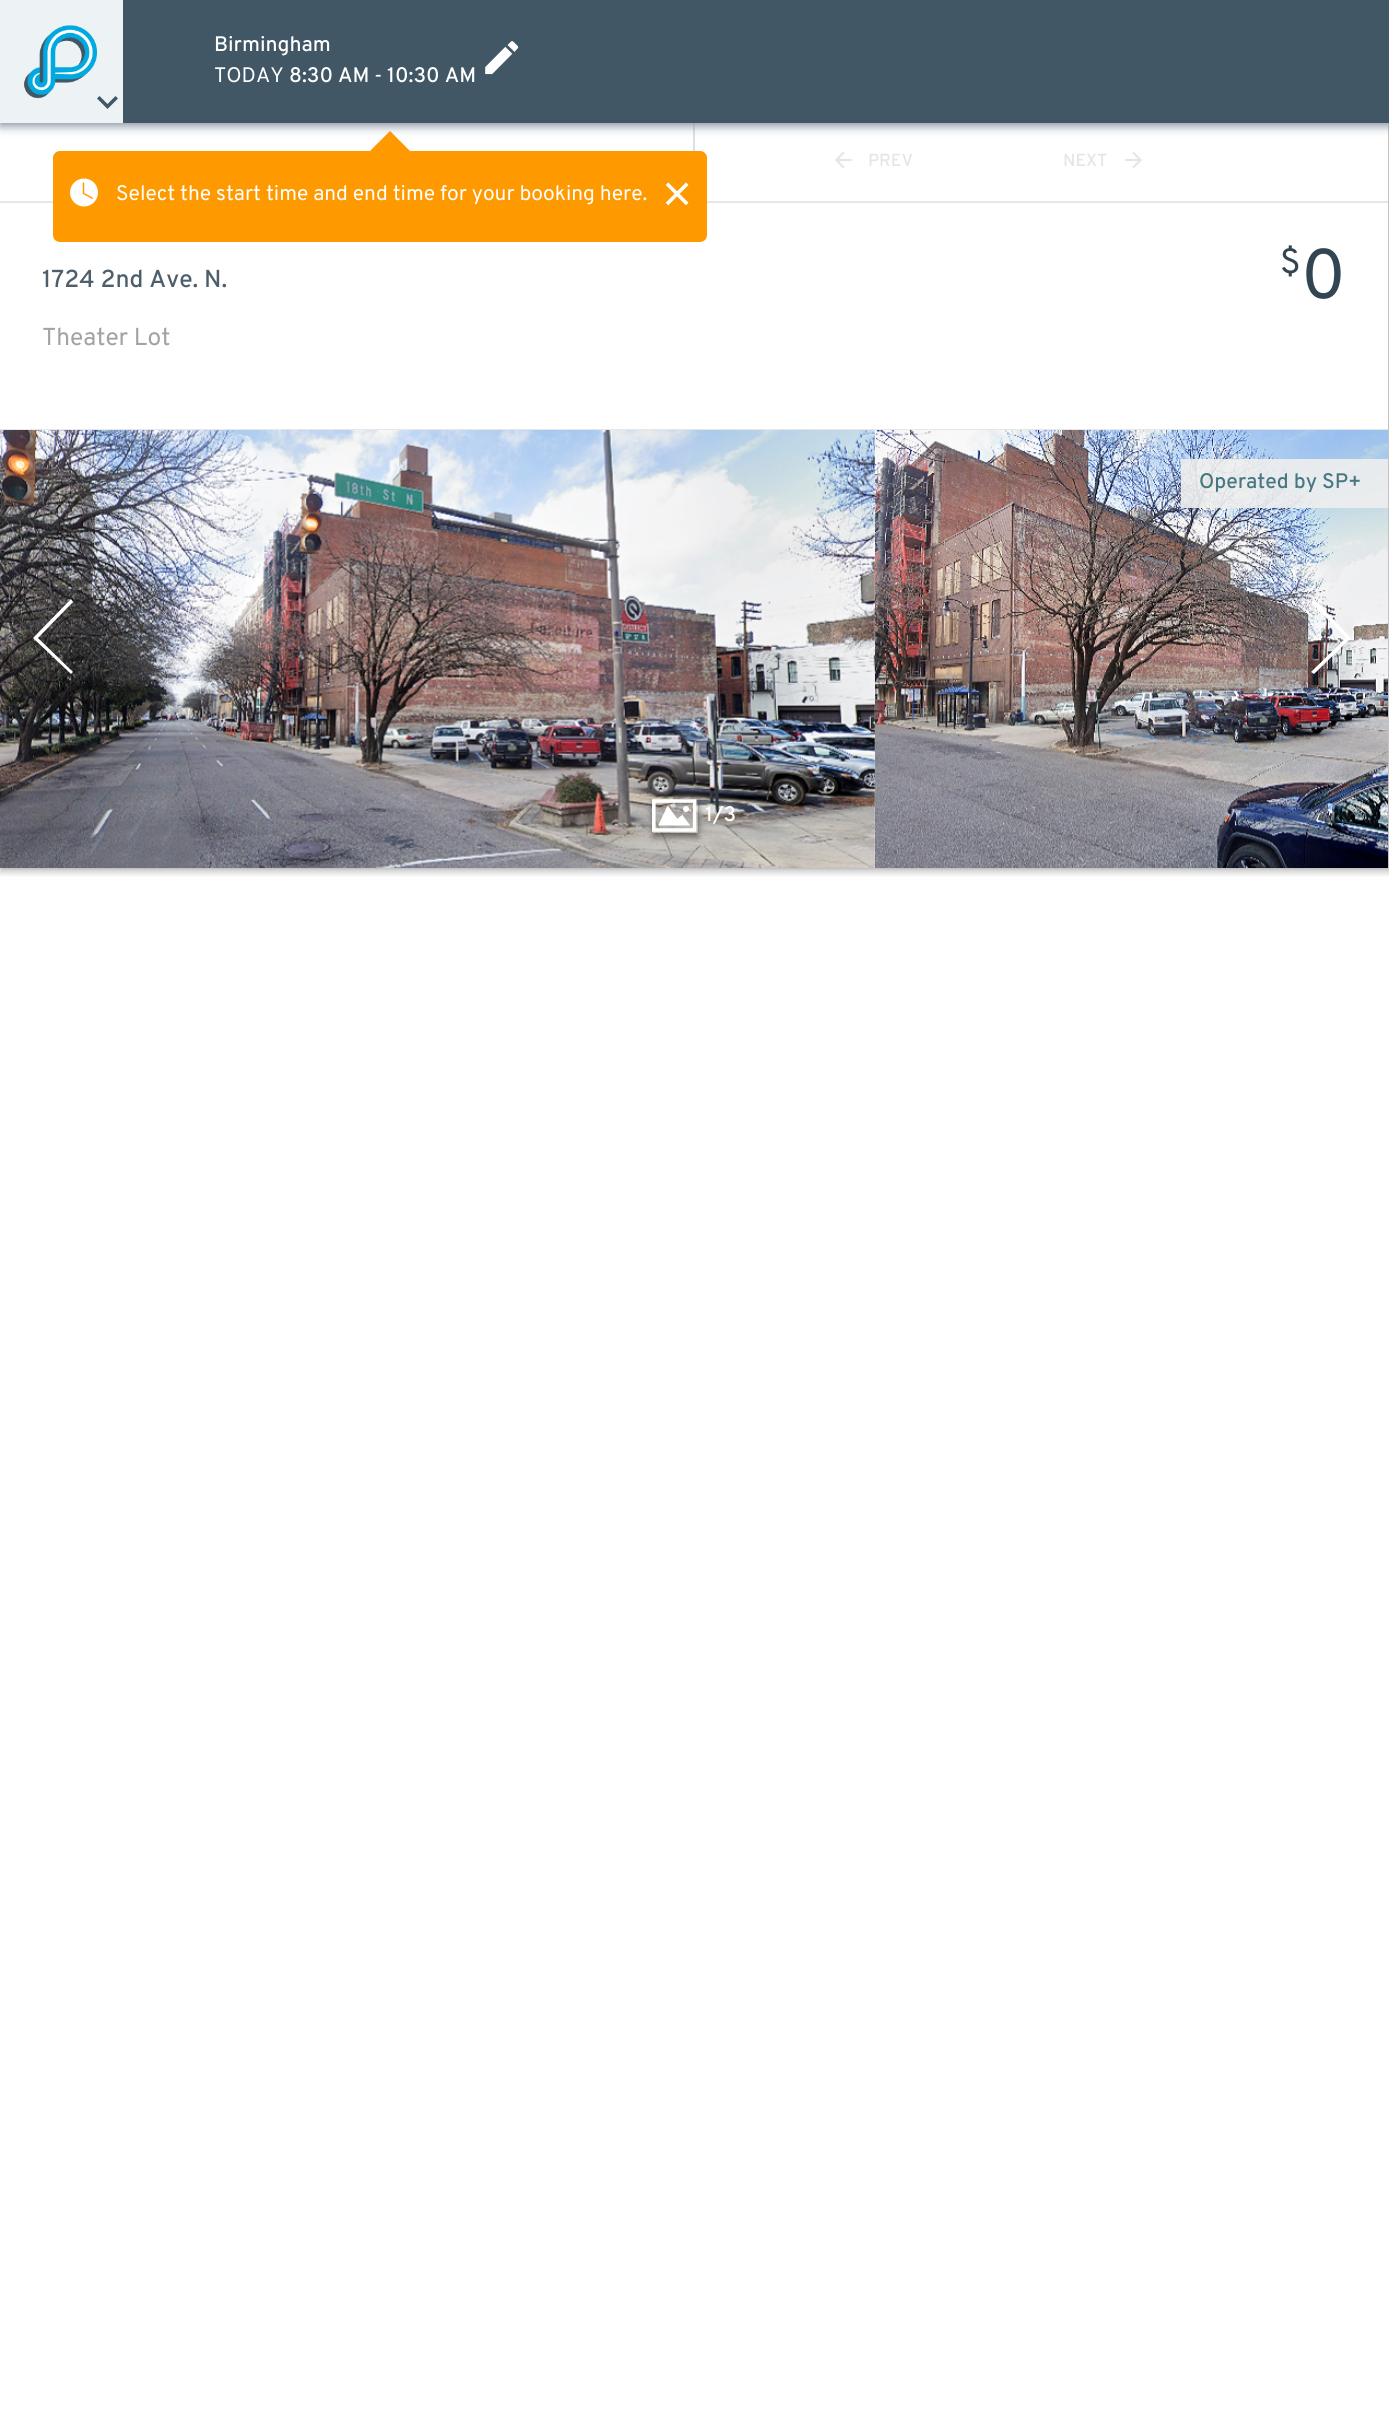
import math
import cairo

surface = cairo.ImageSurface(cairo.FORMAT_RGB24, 1389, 2434)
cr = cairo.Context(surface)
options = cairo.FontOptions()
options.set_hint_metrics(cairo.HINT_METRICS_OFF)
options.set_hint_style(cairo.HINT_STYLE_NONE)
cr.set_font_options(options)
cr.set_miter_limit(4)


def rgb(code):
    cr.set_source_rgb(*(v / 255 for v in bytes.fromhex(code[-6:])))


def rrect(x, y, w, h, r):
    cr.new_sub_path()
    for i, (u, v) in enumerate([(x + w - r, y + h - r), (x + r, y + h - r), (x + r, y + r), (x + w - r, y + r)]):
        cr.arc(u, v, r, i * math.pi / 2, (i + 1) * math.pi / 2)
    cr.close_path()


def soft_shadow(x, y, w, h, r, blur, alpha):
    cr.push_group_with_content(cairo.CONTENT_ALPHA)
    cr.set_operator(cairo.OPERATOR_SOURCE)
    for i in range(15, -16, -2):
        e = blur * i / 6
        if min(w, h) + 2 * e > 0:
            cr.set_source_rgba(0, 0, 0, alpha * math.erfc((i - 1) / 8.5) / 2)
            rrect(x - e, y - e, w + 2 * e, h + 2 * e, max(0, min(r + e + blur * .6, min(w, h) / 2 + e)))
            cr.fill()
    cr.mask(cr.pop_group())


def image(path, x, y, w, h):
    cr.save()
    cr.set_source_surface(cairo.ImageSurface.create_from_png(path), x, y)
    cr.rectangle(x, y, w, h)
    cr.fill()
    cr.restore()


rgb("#ffffff")
cr.paint()
cr.save()
cr.rectangle(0, 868, 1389, 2)
cr.clip()
rgb("#000000")
soft_shadow(0, 123, 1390, 745, 0, 2, 0.12)
cr.restore()
cr.save()
cr.rectangle(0, 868, 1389, 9)
cr.clip()
rgb("#000000")
soft_shadow(0, 126, 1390, 746, 0, 3.5, 0.24)
cr.restore()
for x, y, w, h, color in [
    (1388, 123, 1, 745, "#c2c2c2"),
    (693, 123, 2, 28, "#dfdfdf"),
    (0, 201, 1388, 2, "#e8e7e7"),
]:
    rgb(color)
    cr.rectangle(x, y, w, h)
    cr.fill()
rgb("#ff9900")
rrect(53, 151, 654, 91, 7)
cr.fill()
cr.new_path()
cr.move_to(411, 152)
cr.line_to(369, 152)
cr.line_to(390, 131)
cr.close_path()
cr.fill()
rgb("#84919e")
soft_shadow(0, 4, 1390, 122, 0, 5, 1)
rgb("#415765")
cr.rectangle(123, 0, 1266, 123)
cr.fill()
rgb("#edf2f5")
cr.rectangle(0, 0, 123, 123)
cr.fill()
image("img/1.png", 23, 25, 74, 74)
rgb("#415765")
cr.new_path()
cr.move_to(115.5, 96)
cr.line_to(118, 98.5)
cr.line_to(107.5, 109)
cr.line_to(97, 98.5)
cr.line_to(99.5, 96)
cr.line_to(107.5, 104)
cr.close_path()
cr.fill()
image("img/2.png", 485, 41, 34, 34)
image("img/3.png", 835, 152, 17, 16)
image("img/4.png", 1125, 151, 17, 18)
rgb("#e8e7e7")
cr.rectangle(0, 429, 1388, 2)
cr.fill()
image("img/5.png", 0, 430, 875, 438)
image("img/6.png", 875, 430, 513, 438)
cr.set_source_rgba(0.937, 0.937, 0.937, 0.9)
cr.rectangle(1181, 459, 207, 49)
cr.fill()
rgb("#ffffff")
cr.new_path()
cr.move_to(38, 638)
cr.line_to(73, 602)
cr.line_to(71, 599)
cr.line_to(33, 638)
cr.line_to(71, 674)
cr.line_to(73, 672)
cr.close_path()
cr.fill()
cr.new_path()
cr.move_to(1346, 638)
cr.line_to(1311, 602)
cr.line_to(1314, 599)
cr.line_to(1351, 638)
cr.line_to(1314, 674)
cr.line_to(1311, 672)
cr.close_path()
cr.fill()
cr.save()
cr.set_fill_rule(cairo.FILL_RULE_EVEN_ODD)
cr.new_path()
cr.move_to(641, 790)
cr.line_to(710, 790)
cr.line_to(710, 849)
cr.line_to(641, 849)
cr.close_path()
cr.move_to(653, 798)
cr.line_to(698, 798)
cr.line_to(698, 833)
cr.line_to(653, 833)
cr.close_path()
cr.clip()
rgb("#000000")
soft_shadow(653, 802, 45, 35, 0, 3.5, 0.5)
cr.restore()
image("img/7.png", 652, 799, 45, 33)
image("img/8.png", 70, 178, 28, 29)
image("img/9.png", 665, 182, 24, 24)
cr.select_font_face("Overpass Medium")
cr.set_font_size(21)
cr.move_to(214, 51)
cr.show_text("Birmingham")
cr.select_font_face("Overpass")
cr.move_to(214, 82)
cr.show_text("TODAY")
cr.select_font_face("Overpass Medium")
cr.move_to(289, 82)
cr.show_text("8:30 AM")
cr.select_font_face("Overpass")
cr.move_to(374, 82)
cr.show_text("-")
cr.select_font_face("Overpass Medium")
cr.move_to(387, 82)
cr.show_text("10:30 AM")
cr.set_font_size(17.5)
rgb("#e5e5e5")
cr.move_to(868, 166)
cr.show_text("PREV")
cr.move_to(1063, 166)
cr.show_text("NEXT")
cr.set_font_size(24.5)
rgb("#4e5f6b")
cr.move_to(42, 287)
cr.show_text("1724 2nd Ave. N.")
cr.select_font_face("Overpass")
rgb("#a2a2a2")
cr.move_to(42, 345)
cr.show_text("Theater Lot")
cr.set_font_size(35)
rgb("#324552")
cr.move_to(1280, 273)
cr.show_text("$")
cr.set_font_size(70)
cr.move_to(1301, 298)
cr.show_text("0")
cr.select_font_face("Overpass Medium")
cr.set_font_size(21)
rgb("#477781")
cr.move_to(1199, 488)
cr.show_text("Operated by SP+")
rgb("#ffffff")
cr.move_to(705, 821)
cr.show_text("1/3")
cr.select_font_face("Overpass")
cr.move_to(116, 200)
cr.show_text("Select the start time and end time for your booking here.")
surface.write_to_png("page.png")
